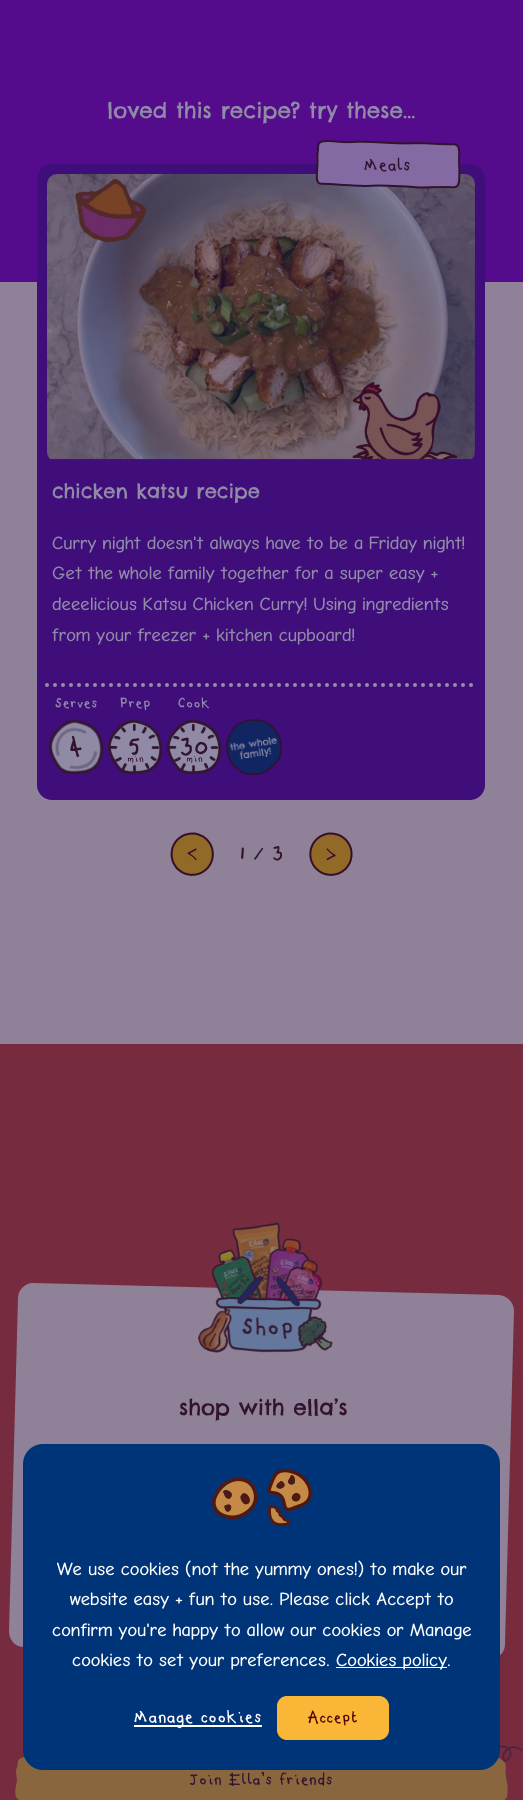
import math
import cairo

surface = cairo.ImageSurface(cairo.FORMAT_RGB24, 523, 1800)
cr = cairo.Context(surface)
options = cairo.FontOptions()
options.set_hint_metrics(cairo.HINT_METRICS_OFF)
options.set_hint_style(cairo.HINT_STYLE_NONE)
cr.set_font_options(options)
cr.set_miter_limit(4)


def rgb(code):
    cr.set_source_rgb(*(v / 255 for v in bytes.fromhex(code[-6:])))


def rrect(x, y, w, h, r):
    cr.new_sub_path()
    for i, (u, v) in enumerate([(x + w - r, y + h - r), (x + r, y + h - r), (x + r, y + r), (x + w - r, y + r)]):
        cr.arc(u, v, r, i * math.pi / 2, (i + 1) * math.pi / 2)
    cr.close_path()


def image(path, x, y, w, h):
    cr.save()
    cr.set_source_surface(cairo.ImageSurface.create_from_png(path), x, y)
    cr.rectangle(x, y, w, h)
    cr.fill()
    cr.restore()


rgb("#8e8198")
cr.paint()
rgb("#550c8c")
cr.rectangle(0, 0, 523, 282)
cr.fill()
rgb("#3f0e7b")
rrect(37, 164, 448, 636, 15)
cr.fill()
image("img/2.png", 47, 174, 428, 286)
image("img/1.png", 315, 139, 146, 50)
cr.new_path()
cr.move_to(47, 685)
cr.line_to(475, 685)
rgb("#908ba6")
cr.set_line_width(4)
cr.set_line_cap(cairo.LINE_CAP_ROUND)
cr.set_dash([0, 8])
cr.stroke()
image("img/3.png", 49, 719, 54, 55)
image("img/4.png", 108, 719, 54, 55)
image("img/4.png", 167, 719, 54, 55)
image("img/5.png", 226, 719, 56, 56)
image("img/6.png", 170, 832, 44, 44)
image("img/7.png", 309, 832, 44, 44)
rgb("#762b3f")
cr.rectangle(0, 1044, 523, 756)
cr.fill()
rgb("#8e8198")
cr.new_path()
cr.move_to(33, 1283)
cr.line_to(499, 1295)
cr.curve_to(508, 1296, 514, 1303, 514, 1311)
cr.line_to(505, 1644)
cr.curve_to(505, 1653, 498, 1659, 490, 1659)
cr.line_to(24, 1647)
cr.curve_to(15, 1647, 9, 1640, 9, 1631)
cr.line_to(18, 1298)
cr.curve_to(18, 1290, 25, 1283, 33, 1283)
cr.close_path()
cr.fill()
image("img/8.png", 198, 1222, 135, 131)
image("img/11.png", 15, 1757, 493, 43)
rgb("#003479")
rrect(23, 1444, 477, 326, 20)
cr.fill()
image("img/9.png", 212, 1469, 99, 57)
rgb("#ffffff")
cr.rectangle(336, 1667, 111, 1)
cr.fill()
cr.rectangle(134, 1725, 128, 2)
cr.fill()
rgb("#fab637")
rrect(277.5, 1696.5, 111, 43, 9.5)
cr.fill_preserve()
cr.set_line_width(1)
cr.set_line_cap(cairo.LINE_CAP_BUTT)
cr.set_dash([])
cr.stroke()
image("img/10.png", 500, 1745, 23, 17)
cr.select_font_face("Chelsea Market")
cr.set_font_size(21.5)
rgb("#908ba6")
cr.move_to(107, 118)
cr.show_text("loved this recipe? try these…")
cr.select_font_face("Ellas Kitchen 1")
cr.set_font_size(22)
rgb("#32132e")
cr.move_to(364, 171)
cr.show_text("Meals")
cr.select_font_face("Chelsea Market")
cr.set_font_size(19.5)
rgb("#908ba6")
cr.move_to(52, 498)
cr.show_text("chicken katsu recipe")
cr.select_font_face("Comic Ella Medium")
cr.set_font_size(18)
for x, y, s in [
    (52, 549, "Curry night doesn't always have to be a Friday night!"),
    (52, 579, "Get the whole family together for a super easy +"),
    (52, 610, "deeelicious Katsu Chicken Curry! Using ingredients"),
    (52, 641, "from your freezer + kitchen cupboard!"),
]:
    cr.move_to(x, y)
    cr.show_text(s)
cr.select_font_face("Ellas Kitchen 1")
cr.move_to(55, 708)
cr.show_text("Serves")
cr.set_font_size(30)
rgb("#32132e")
cr.move_to(69, 755)
cr.show_text("4")
cr.set_font_size(18)
rgb("#908ba6")
cr.move_to(120, 708)
cr.show_text("Prep")
cr.set_font_size(30)
rgb("#32132e")
cr.move_to(129, 755)
cr.show_text("5")
cr.set_font_size(18)
rgb("#908ba6")
cr.move_to(178, 708)
cr.show_text("Cook")
cr.set_font_size(30)
rgb("#32132e")
cr.move_to(180, 755)
cr.show_text("30")
cr.set_font_size(24)
cr.move_to(240, 860)
cr.show_text("1 / 3")
cr.select_font_face("Chelsea Market")
cr.set_font_size(21.5)
cr.move_to(179, 1415)
cr.show_text("shop with ella’s")
cr.select_font_face("Comic Ella Medium")
cr.set_font_size(18)
rgb("#ffffff")
for x, y, s in [
    (57, 1575, "We use cookies (not the yummy ones!) to make our"),
    (70, 1605, "website easy + fun to use. Please click Accept to"),
    (52, 1636, "confirm you're happy to allow our cookies or Manage"),
    (72, 1666, "cookies to set your preferences."),
    (336, 1666, "Cookies policy."),
]:
    cr.move_to(x, y)
    cr.show_text(s)
cr.select_font_face("Ellas Kitchen 1")
cr.set_font_size(22)
cr.move_to(134, 1723)
cr.show_text("Manage cookies")
cr.set_font_size(20)
rgb("#4e0706")
cr.move_to(308, 1723)
cr.show_text("Accept")
rgb("#32132e")
cr.move_to(189, 1785)
cr.show_text("Join Ella’s friends")
surface.write_to_png("page.png")
